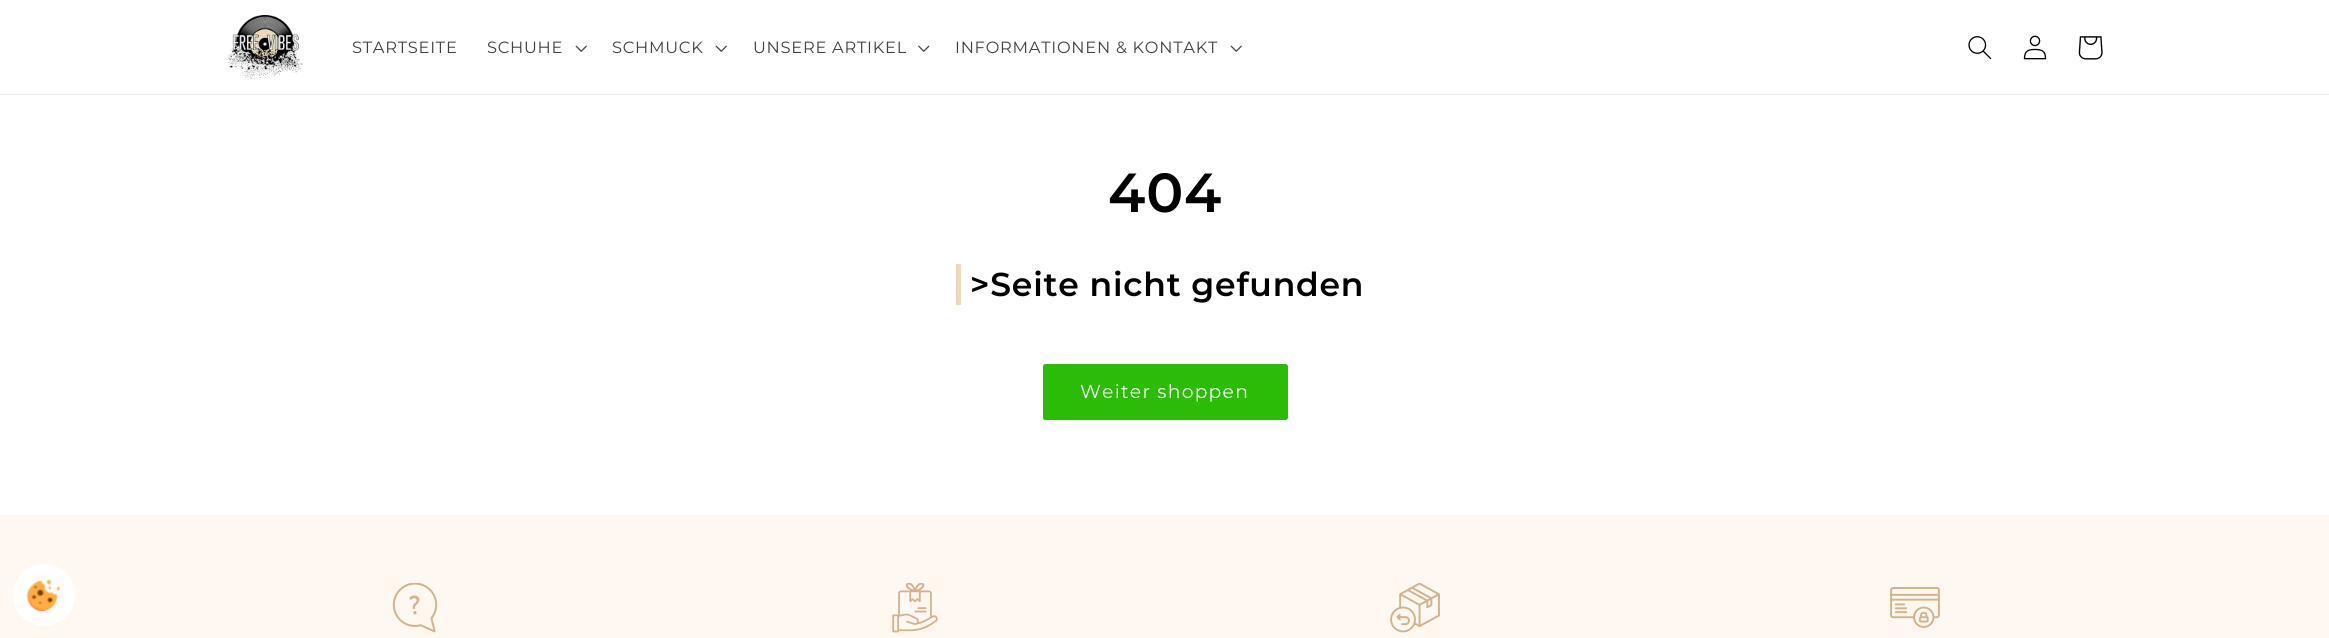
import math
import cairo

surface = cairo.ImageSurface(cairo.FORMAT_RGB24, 2329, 638)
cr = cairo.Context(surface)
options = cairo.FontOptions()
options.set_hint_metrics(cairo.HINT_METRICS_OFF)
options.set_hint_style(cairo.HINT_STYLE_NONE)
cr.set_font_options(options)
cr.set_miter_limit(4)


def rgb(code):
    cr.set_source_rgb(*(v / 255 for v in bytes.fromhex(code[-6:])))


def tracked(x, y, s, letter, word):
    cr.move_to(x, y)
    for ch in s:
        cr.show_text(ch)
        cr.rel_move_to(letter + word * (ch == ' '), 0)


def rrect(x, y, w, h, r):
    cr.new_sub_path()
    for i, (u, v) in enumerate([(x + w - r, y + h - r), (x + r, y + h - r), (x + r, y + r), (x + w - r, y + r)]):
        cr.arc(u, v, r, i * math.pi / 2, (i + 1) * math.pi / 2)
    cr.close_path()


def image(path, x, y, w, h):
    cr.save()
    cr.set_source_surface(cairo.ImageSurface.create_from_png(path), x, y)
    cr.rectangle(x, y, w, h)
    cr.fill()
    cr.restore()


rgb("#ffffff")
cr.paint()
rgb("#ebebeb")
cr.rectangle(0, 94, 2329, 1)
cr.fill()
image("img/1.png", 227, 15, 76, 65)
image("img/2.png", 575, 45, 12, 7)
image("img/2.png", 715, 45, 12, 7)
image("img/3.png", 918, 45, 12, 7)
image("img/2.png", 1230, 45, 12, 7)
image("img/4.png", 1968, 36, 24, 24)
image("img/5.png", 2023, 35, 24, 25)
image("img/6.png", 2078, 36, 25, 24)
rgb("#ecd8bd")
cr.rectangle(956, 264, 5, 41)
cr.fill()
rgb("#2bbc07")
rrect(1043, 364, 245, 56, 2.5)
cr.fill()
rgb("#fff8f0")
cr.rectangle(0, 515, 2329, 123)
cr.fill()
image("img/7.png", 392, 583, 46, 50)
image("img/8.png", 892, 583, 46, 50)
image("img/9.png", 1390, 583, 50, 50)
image("img/10.png", 1890, 587, 50, 41)
rgb("#ffffff")
cr.arc(44, 595, 31, 0, 2 * math.pi)
cr.fill()
image("img/11.png", 26, 579, 35, 33)
cr.select_font_face("Montserrat")
cr.set_font_size(16.25)
rgb("#404040")
for x, y, s in [
    (352, 53, "STARTSEITE"),
    (487, 53, "SCHUHE"),
    (612, 53, "SCHMUCK"),
    (753, 53, "UNSERE ARTIKEL"),
    (955, 53, "INFORMATIONEN & KONTAKT"),
]:
    tracked(x, y, s, 0.75, 0)
cr.select_font_face("Montserrat SemiBold")
cr.set_font_size(55)
rgb("#000000")
tracked(1108, 212, "404", 0.8, 0)
cr.set_font_size(33)
tracked(970, 296, ">Seite nicht gefunden", 0.8, 0)
cr.select_font_face("Montserrat")
cr.set_font_size(18.75)
rgb("#ffffff")
tracked(1080, 398, "Weiter shoppen", 1.25, 0)
surface.write_to_png("page.png")
